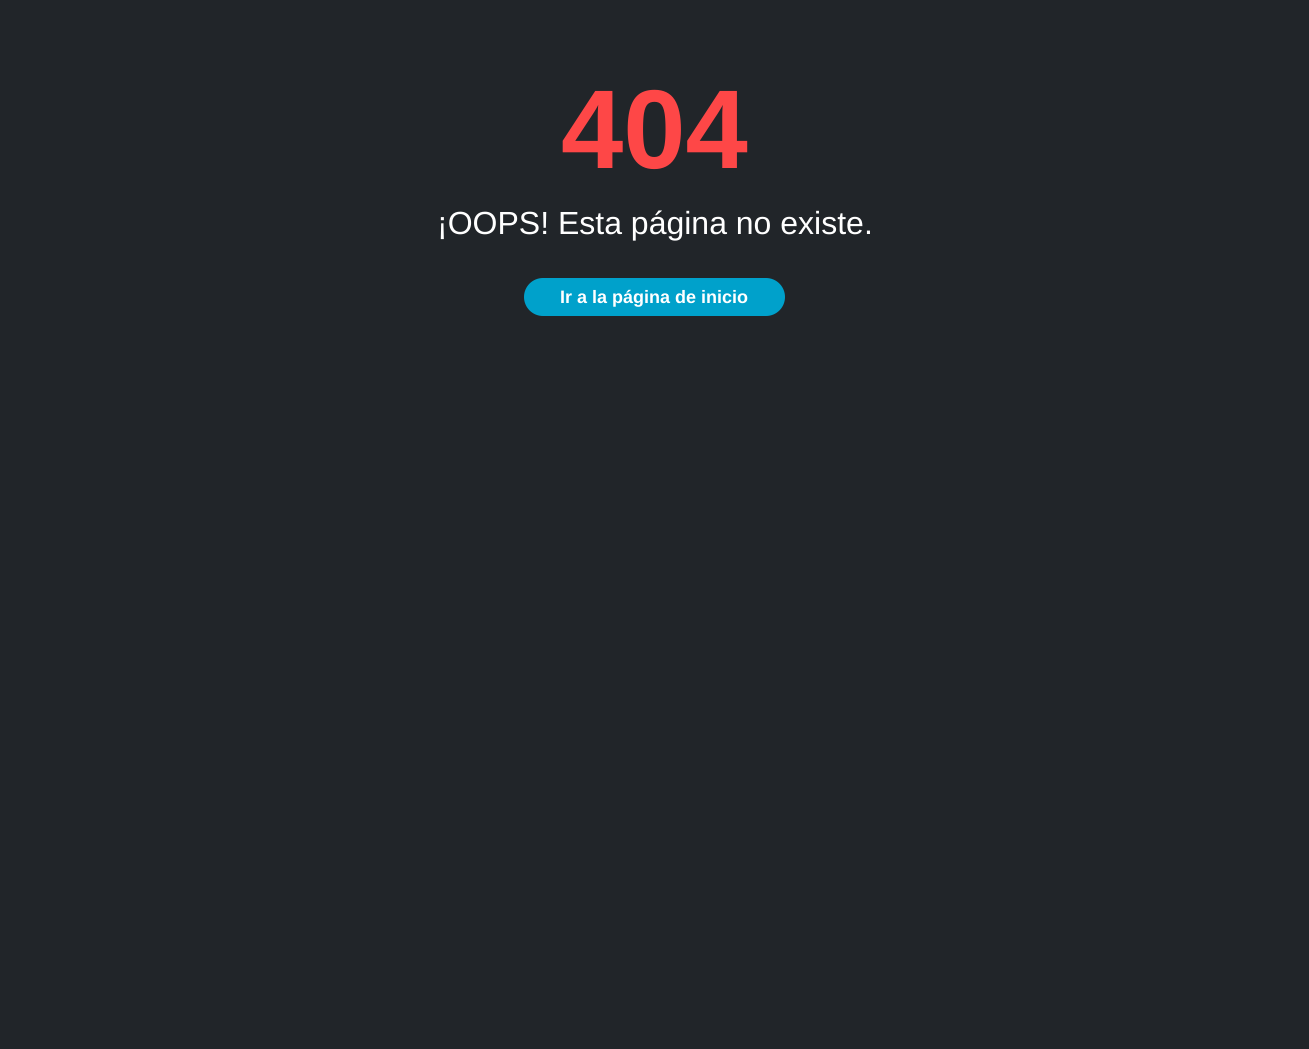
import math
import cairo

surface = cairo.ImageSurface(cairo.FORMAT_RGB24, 1309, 1049)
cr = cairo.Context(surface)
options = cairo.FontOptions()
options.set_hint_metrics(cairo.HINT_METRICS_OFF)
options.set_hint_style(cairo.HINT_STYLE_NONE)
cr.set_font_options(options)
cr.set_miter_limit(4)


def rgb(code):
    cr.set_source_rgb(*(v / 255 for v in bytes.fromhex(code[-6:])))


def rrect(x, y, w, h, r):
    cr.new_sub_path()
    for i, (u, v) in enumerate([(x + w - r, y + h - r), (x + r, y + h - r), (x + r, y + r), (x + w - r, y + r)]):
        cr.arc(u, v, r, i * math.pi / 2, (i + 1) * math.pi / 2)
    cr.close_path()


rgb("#212529")
cr.paint()
rgb("#00a1cb")
rrect(524, 278, 261, 38, 19)
cr.fill()
cr.select_font_face("Liberation Sans", cairo.FONT_SLANT_NORMAL, cairo.FONT_WEIGHT_BOLD)
cr.set_font_size(112)
rgb("#fe4747")
cr.move_to(561, 168)
cr.show_text("404")
cr.select_font_face("Liberation Sans")
cr.set_font_size(32)
rgb("#ffffff")
cr.move_to(437, 234)
cr.show_text("¡OOPS! Esta página no existe.")
cr.select_font_face("Liberation Sans", cairo.FONT_SLANT_NORMAL, cairo.FONT_WEIGHT_BOLD)
cr.set_font_size(18)
cr.move_to(560, 303)
cr.show_text("Ir a la página de inicio")
surface.write_to_png("page.png")
